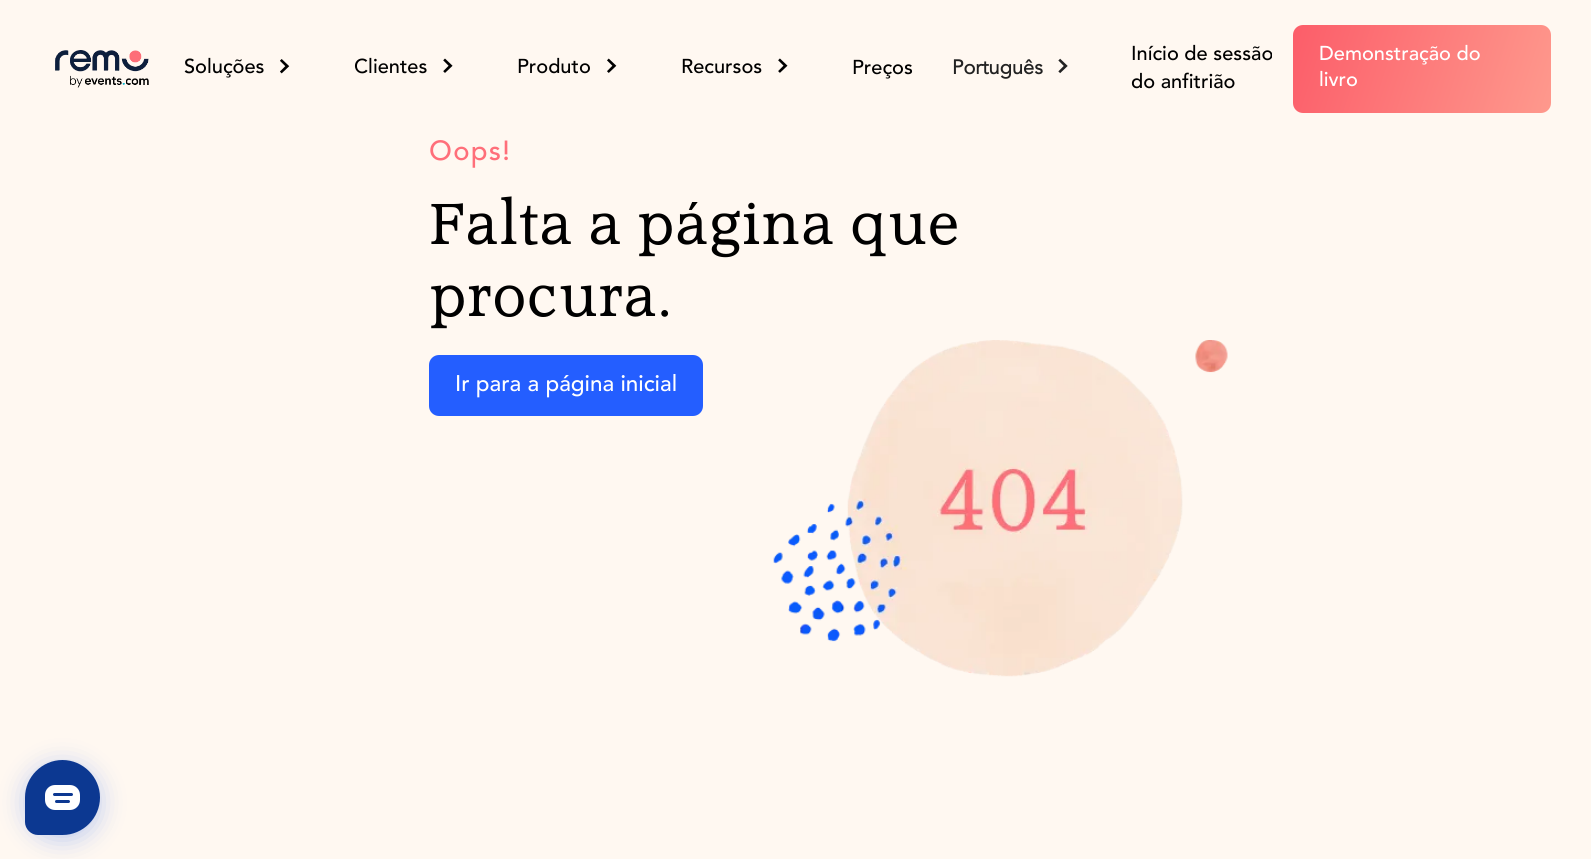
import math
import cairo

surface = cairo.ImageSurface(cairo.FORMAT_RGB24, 1591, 859)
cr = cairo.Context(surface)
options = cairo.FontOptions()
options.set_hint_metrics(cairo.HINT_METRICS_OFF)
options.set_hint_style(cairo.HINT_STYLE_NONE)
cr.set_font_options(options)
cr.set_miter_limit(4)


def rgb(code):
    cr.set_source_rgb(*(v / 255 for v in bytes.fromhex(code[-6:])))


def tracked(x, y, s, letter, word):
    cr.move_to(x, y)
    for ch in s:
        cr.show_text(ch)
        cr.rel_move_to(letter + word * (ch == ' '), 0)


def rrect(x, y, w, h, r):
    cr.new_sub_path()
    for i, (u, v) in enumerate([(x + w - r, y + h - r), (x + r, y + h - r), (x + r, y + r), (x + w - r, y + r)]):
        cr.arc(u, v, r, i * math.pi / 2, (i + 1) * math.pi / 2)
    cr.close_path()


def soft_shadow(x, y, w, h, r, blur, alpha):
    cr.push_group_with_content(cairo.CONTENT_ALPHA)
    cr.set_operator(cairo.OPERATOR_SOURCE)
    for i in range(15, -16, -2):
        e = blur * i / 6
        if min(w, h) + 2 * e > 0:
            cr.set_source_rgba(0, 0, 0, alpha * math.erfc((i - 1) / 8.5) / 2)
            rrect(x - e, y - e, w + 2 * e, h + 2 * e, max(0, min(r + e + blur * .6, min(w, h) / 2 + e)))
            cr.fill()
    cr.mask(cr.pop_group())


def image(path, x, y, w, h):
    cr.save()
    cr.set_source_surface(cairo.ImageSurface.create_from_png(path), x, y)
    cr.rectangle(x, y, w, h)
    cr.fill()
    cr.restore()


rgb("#fff8f1")
cr.paint()
image("img/1.png", 55, 50, 94, 38)
image("img/2.png", 280, 59, 10, 15)
image("img/3.png", 443, 58, 10, 15)
image("img/4.png", 607, 58, 10, 15)
image("img/5.png", 778, 58, 10, 15)
image("img/6.png", 1058, 58, 10, 16)
gradient = cairo.LinearGradient(1292, 27, 1552, 111)
gradient.add_color_stop_rgba(0, 0.988, 0.365, 0.412, 1)
gradient.add_color_stop_rgba(1, 0.996, 0.6, 0.553, 1)
cr.set_source(gradient)
rrect(1293, 25, 258, 88, 10)
cr.fill()
rgb("#245eff")
rrect(429, 355, 274, 61, 10)
cr.fill()
image("img/7.png", 773, 340, 455, 337)
rgb("#2563eb")
soft_shadow(25, 765, 75, 75, 37.5, 12.5, 0.3)
rgb("#0c3891")
cr.new_path()
cr.move_to(62.5, 760)
cr.curve_to(83, 760, 100, 777, 100, 797.5)
cr.curve_to(100, 818, 83, 835, 62.5, 835)
cr.line_to(38, 835)
cr.curve_to(31, 835, 25, 829, 25, 822)
cr.line_to(25, 797.5)
cr.curve_to(25, 777, 42, 760, 62.5, 760)
cr.close_path()
cr.fill()
rgb("#ffffff")
rrect(45, 785, 35, 25, 10)
cr.fill()
rgb("#0c3891")
rrect(53, 793, 20, 3, 1.5)
cr.fill()
rrect(55, 800, 15, 3, 1.5)
cr.fill()
cr.select_font_face("Avenir Medium")
cr.set_font_size(20)
rgb("#000000")
for x, y, s in [
    (184, 73, "Soluções"),
    (354, 73, "Clientes"),
    (517, 73, "Produto"),
    (681, 73, "Recursos"),
    (852, 74, "Preços"),
]:
    cr.move_to(x, y)
    cr.show_text(s)
cr.select_font_face("Avenir", cairo.FONT_SLANT_NORMAL, cairo.FONT_WEIGHT_BOLD)
rgb("#222222")
cr.move_to(952, 74)
cr.show_text("Português")
cr.select_font_face("Avenir Medium")
rgb("#000000")
cr.move_to(1131, 60)
cr.show_text("Início de sessão")
cr.move_to(1131, 88)
cr.show_text("do anfitrião")
rgb("#ffffff")
cr.move_to(1319, 60)
cr.show_text("Demonstração do")
cr.move_to(1319, 86)
cr.show_text("livro")
cr.set_font_size(27.5)
rgb("#ff6f7a")
tracked(429, 160, "Oops!", 1.25, 0)
cr.select_font_face("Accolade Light")
cr.set_font_size(60)
rgb("#000000")
cr.move_to(429, 244)
cr.show_text("Falta a página que")
cr.move_to(429, 316)
cr.show_text("procura.")
cr.select_font_face("Avenir Medium")
cr.set_font_size(22.5)
rgb("#ffffff")
cr.move_to(455, 391)
cr.show_text("Ir para a página inicial")
surface.write_to_png("page.png")
